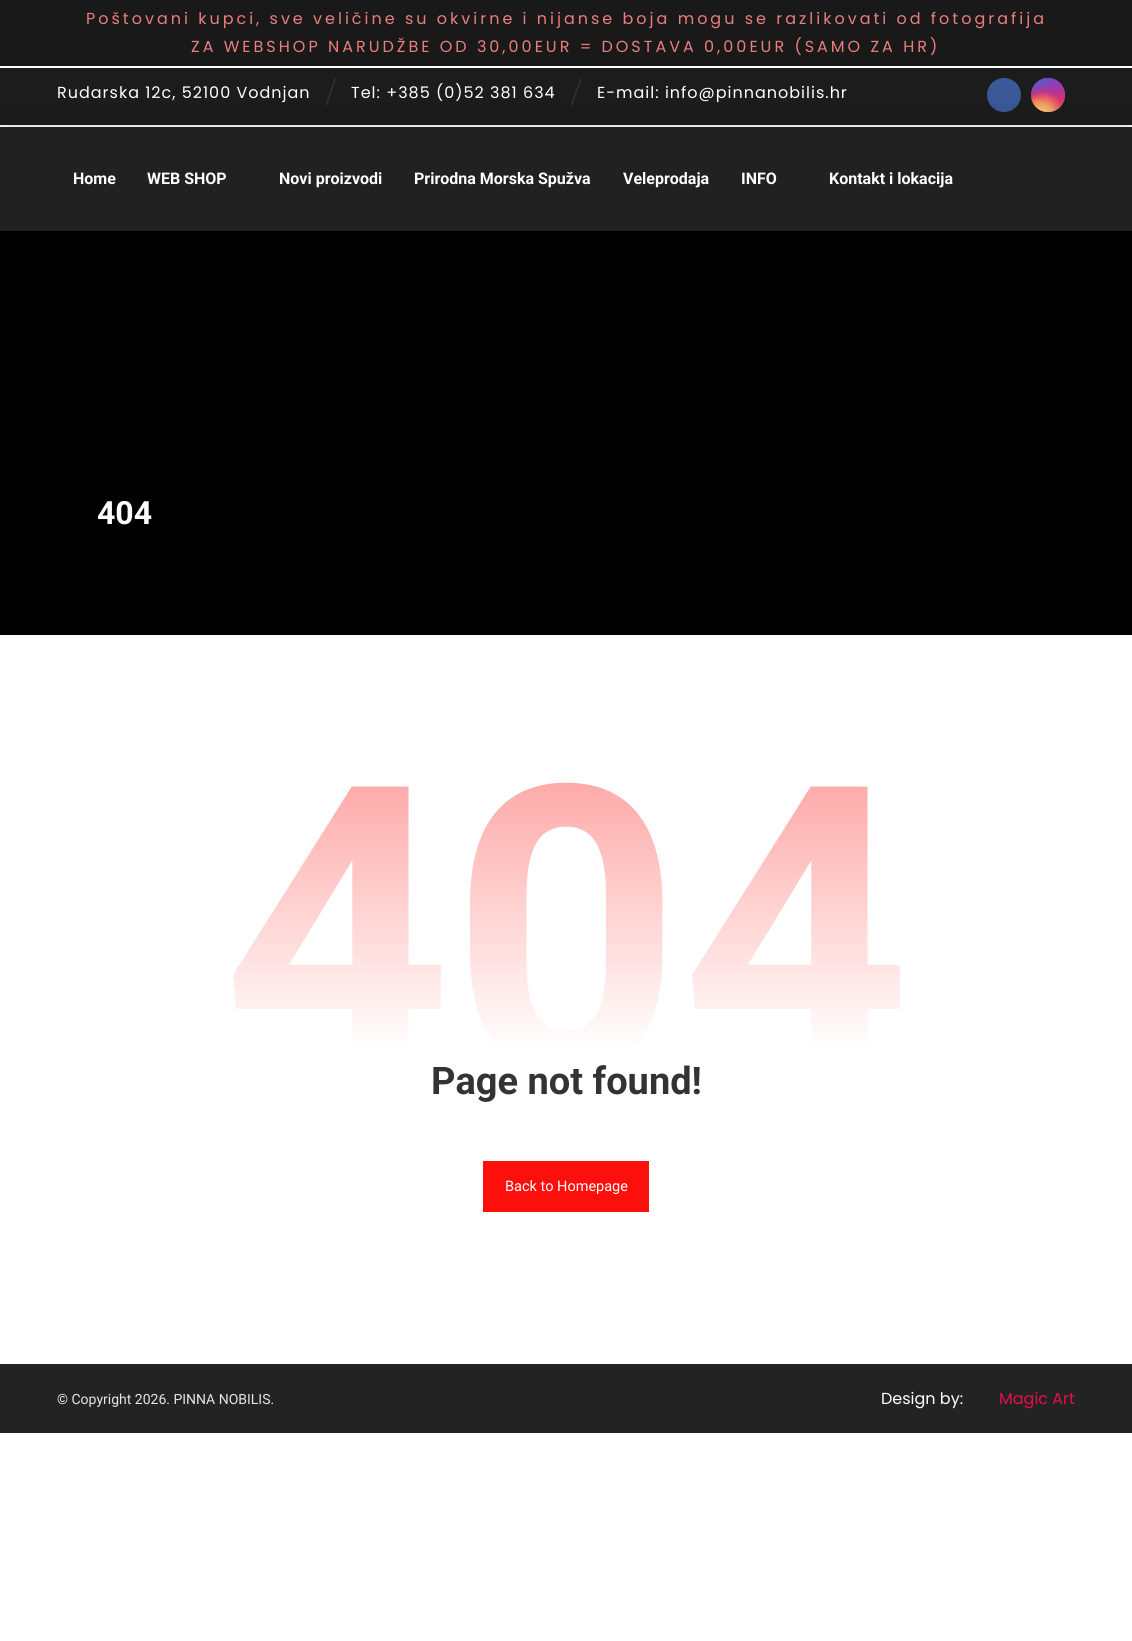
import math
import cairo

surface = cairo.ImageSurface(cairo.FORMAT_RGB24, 1132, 1641)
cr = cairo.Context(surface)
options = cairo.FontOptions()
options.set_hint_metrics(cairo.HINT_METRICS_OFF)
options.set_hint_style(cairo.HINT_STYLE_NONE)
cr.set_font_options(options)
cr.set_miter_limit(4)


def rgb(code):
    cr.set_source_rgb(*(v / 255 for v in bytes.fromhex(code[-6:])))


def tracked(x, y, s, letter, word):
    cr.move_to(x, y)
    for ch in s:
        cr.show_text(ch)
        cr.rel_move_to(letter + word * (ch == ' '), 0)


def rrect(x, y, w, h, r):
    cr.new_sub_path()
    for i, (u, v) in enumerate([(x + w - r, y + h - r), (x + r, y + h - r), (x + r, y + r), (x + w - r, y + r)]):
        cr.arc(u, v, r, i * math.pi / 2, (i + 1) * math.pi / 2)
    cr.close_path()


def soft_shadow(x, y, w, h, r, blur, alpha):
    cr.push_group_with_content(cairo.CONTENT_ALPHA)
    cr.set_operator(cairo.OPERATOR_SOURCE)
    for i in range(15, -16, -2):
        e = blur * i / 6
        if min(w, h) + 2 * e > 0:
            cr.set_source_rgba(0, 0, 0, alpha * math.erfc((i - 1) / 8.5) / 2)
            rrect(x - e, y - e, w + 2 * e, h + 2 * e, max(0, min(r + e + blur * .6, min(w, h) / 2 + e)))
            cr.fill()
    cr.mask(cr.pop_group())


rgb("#ffffff")
cr.paint()
rgb("#191919")
cr.rectangle(0, 0, 1132, 66)
cr.fill()
rgb("#1c1c1c")
cr.rectangle(0, 68, 1132, 57)
cr.fill()
rgb("#383838")
cr.new_path()
cr.move_to(335, 78.5)
cr.line_to(336, 79)
cr.line_to(326.5, 105.5)
cr.line_to(325.5, 105)
cr.close_path()
cr.fill()
cr.new_path()
cr.move_to(580.5, 78.5)
cr.line_to(581.5, 79)
cr.line_to(572, 105.5)
cr.line_to(571, 105)
cr.close_path()
cr.fill()
rgb("#3b5998")
cr.arc(1004, 95, 17, 0, 2 * math.pi)
cr.fill()
gradient = cairo.LinearGradient(1048, 78, 1048, 112)
gradient.add_color_stop_rgba(0, 0.396, 0.349, 0.792, 1)
gradient.add_color_stop_rgba(0.3, 0.737, 0.192, 0.561, 1)
gradient.add_color_stop_rgba(0.5, 0.894, 0.18, 0.4, 1)
gradient.add_color_stop_rgba(0.7, 0.98, 0.325, 0.196, 1)
gradient.add_color_stop_rgba(1, 1, 0.863, 0.502, 1)
cr.set_source(gradient)
cr.arc(1048, 95, 17, 0, 2 * math.pi)
cr.fill()
gradient = cairo.RadialGradient(1065, 112, 0, 1065, 112, 48)
gradient.add_color_stop_rgba(0, 0.851, 0.192, 0.478, 1)
gradient.add_color_stop_rgba(1, 0.851, 0.192, 0.478, 0)
cr.set_source(gradient)
cr.arc(1048, 95, 17, 0, 2 * math.pi)
cr.fill()
gradient = cairo.RadialGradient(0, 0, 0, 0, 0, 1)
gradient.set_matrix(cairo.Matrix(1 / 29, 0, 0, 1 / 58, -1 * 1051 / 29, -1 * 71 / 58))
gradient.add_color_stop_rgba(0, 0.537, 0.239, 0.761, 1)
gradient.add_color_stop_rgba(0.5, 0.537, 0.239, 0.761, 0)
cr.set_source(gradient)
cr.arc(1048, 95, 17, 0, 2 * math.pi)
cr.fill()
gradient = cairo.RadialGradient(1065, 78, 0, 1065, 78, 48)
gradient.add_color_stop_rgba(0, 0.537, 0.239, 0.761, 1)
gradient.add_color_stop_rgba(0.5, 0.537, 0.239, 0.761, 0)
cr.set_source(gradient)
cr.arc(1048, 95, 17, 0, 2 * math.pi)
cr.fill()
gradient = cairo.RadialGradient(0, 0, 0, 0, 0, 1)
gradient.set_matrix(cairo.Matrix(1 / 38, 0, 0, 1 / 72, -1 * 1038 / 38, -1 * 61 / 72))
gradient.add_color_stop_rgba(0, 0.322, 0.345, 0.812, 1)
gradient.add_color_stop_rgba(0.5, 0.322, 0.345, 0.812, 0)
cr.set_source(gradient)
cr.arc(1048, 95, 17, 0, 2 * math.pi)
cr.fill()
gradient = cairo.RadialGradient(0, 0, 0, 0, 0, 1)
gradient.set_matrix(cairo.Matrix(1 / 48, 0, 0, 1 / 60, -1 * 1031 / 48, -1 * 70 / 60))
gradient.add_color_stop_rgba(0, 0.322, 0.345, 0.812, 1)
gradient.add_color_stop_rgba(0.5, 0.322, 0.345, 0.812, 0)
cr.set_source(gradient)
cr.arc(1048, 95, 17, 0, 2 * math.pi)
cr.fill()
gradient = cairo.RadialGradient(1034, 126, 0, 1034, 126, 57)
gradient.add_color_stop_rgba(0, 0.996, 0.855, 0.494, 1)
gradient.add_color_stop_rgba(0.5, 0.996, 0.855, 0.494, 0)
cr.set_source(gradient)
cr.arc(1048, 95, 17, 0, 2 * math.pi)
cr.fill()
gradient = cairo.RadialGradient(1043, 112, 0, 1043, 112, 41)
gradient.add_color_stop_rgba(0, 0.996, 0.773, 0.392, 1)
gradient.add_color_stop_rgba(0.5, 0.996, 0.773, 0.392, 0)
cr.set_source(gradient)
cr.arc(1048, 95, 17, 0, 2 * math.pi)
cr.fill()
rgb("#000000")
cr.rectangle(0, 231, 1132, 404)
cr.fill()
rgb("#000000")
soft_shadow(0, 127, 1132, 104, 0, 20, 0.2)
for x, y, w, h, color in [
    (0, 127, 1132, 104, "#212121"),
    (483, 1161, 166, 51, "#fd0f0b"),
    (0, 1364, 1132, 69, "#232323"),
]:
    rgb(color)
    cr.rectangle(x, y, w, h)
    cr.fill()
cr.select_font_face("Poppins")
cr.set_font_size(16)
rgb("#ec7d7d")
tracked(86, 24, "Poštovani kupci, sve veličine su okvirne i nijanse boja mogu se razlikovati od fotografija", 3, 0)
tracked(191, 52, "ZA WEBSHOP NARUDŽBE OD 30,00EUR = DOSTAVA 0,00EUR (SAMO ZA HR)", 3, 0)
rgb("#ffffff")
for x, y, s in [
    (57, 98, "Rudarska 12c, 52100 Vodnjan"),
    (351, 98, "Tel: +385 (0)52 381 634"),
    (597, 98, "E-mail: info@pinnanobilis.hr"),
]:
    tracked(x, y, s, 1, 0)
cr.select_font_face("Roboto", cairo.FONT_SLANT_NORMAL, cairo.FONT_WEIGHT_BOLD)
for x, y, s in [
    (73, 184, "Home"),
    (147, 184, "WEB SHOP"),
    (279, 184, "Novi proizvodi"),
    (414, 184, "Prirodna Morska Spužva"),
    (623, 184, "Veleprodaja"),
    (741, 184, "INFO"),
    (829, 184, "Kontakt i lokacija"),
]:
    cr.move_to(x, y)
    cr.show_text(s)
cr.set_font_size(32)
cr.move_to(97, 524)
cr.show_text("404")
cr.set_font_size(400)
gradient = cairo.LinearGradient(566, 700, 566, 1169)
gradient.add_color_stop_rgba(0, 0.992, 0.569, 0.561, 1)
gradient.add_color_stop_rgba(0.75, 1, 1, 1, 1)
cr.set_source(gradient)
cr.move_to(222, 1071)
cr.show_text("404")
cr.set_font_size(38)
rgb("#333333")
cr.move_to(431, 1094)
cr.show_text("Page not found!")
cr.select_font_face("Roboto")
cr.set_font_size(14.5)
rgb("#ffffff")
cr.move_to(505, 1191)
cr.show_text("Back to Homepage")
cr.set_font_size(14)
rgb("#e5e5e5")
cr.move_to(57, 1404)
cr.show_text("© Copyright 2026. PINNA NOBILIS.")
cr.select_font_face("Poppins")
cr.set_font_size(16)
rgb("#ffffff")
cr.move_to(881, 1404)
cr.show_text("Design by:")
rgb("#e80c4a")
cr.move_to(999, 1404)
cr.show_text("Magic Art")
surface.write_to_png("page.png")
